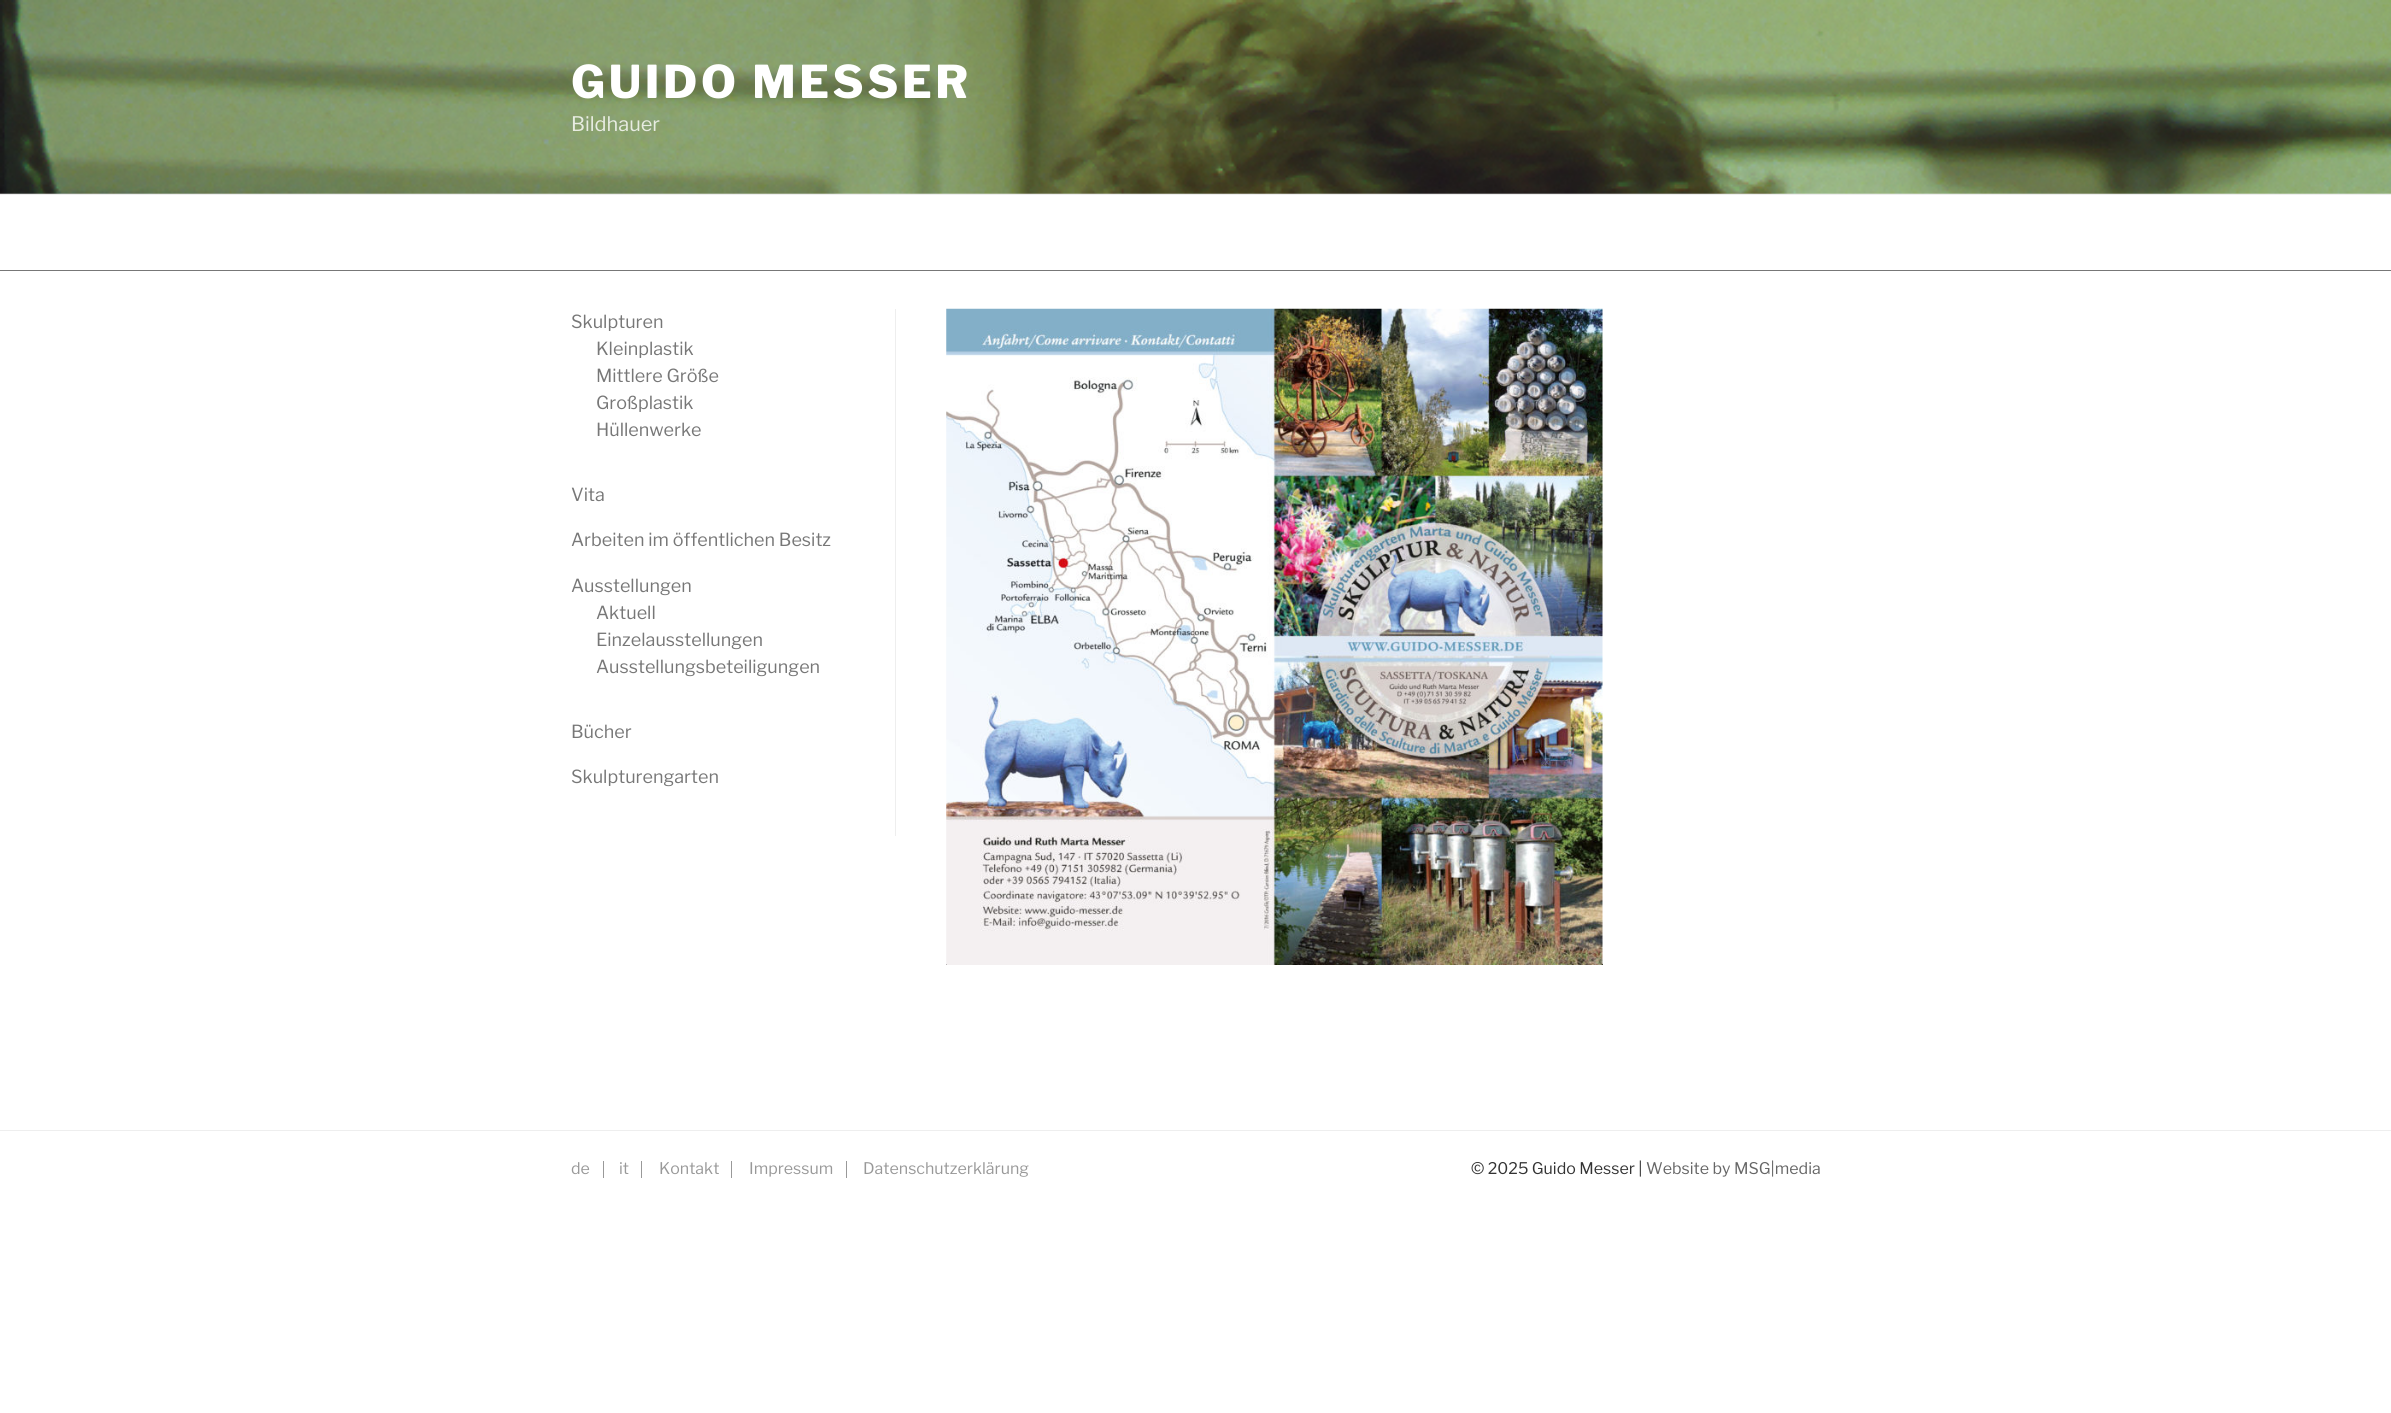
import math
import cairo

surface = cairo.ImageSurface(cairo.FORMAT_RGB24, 2391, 1413)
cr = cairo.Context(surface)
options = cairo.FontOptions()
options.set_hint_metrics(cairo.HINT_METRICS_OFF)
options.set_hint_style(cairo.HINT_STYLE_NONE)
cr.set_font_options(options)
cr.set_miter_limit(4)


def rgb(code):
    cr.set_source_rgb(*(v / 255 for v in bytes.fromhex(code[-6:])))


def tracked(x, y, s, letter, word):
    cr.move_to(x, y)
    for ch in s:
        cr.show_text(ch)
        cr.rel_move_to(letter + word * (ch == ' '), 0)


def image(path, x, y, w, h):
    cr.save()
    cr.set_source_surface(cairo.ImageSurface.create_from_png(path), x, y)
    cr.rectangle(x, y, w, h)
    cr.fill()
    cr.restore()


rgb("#ffffff")
cr.paint()
image("img/1.png", 0, 0, 2391, 194)
for x, y, w, h, color in [
    (0, 194, 2391, 1, "#eeeeee"),
    (0, 270, 2391, 1, "#777777"),
    (895, 309, 1, 527, "#eeeeee"),
    (946, 964, 657, 1, "#0f0f0f"),
]:
    rgb(color)
    cr.rectangle(x, y, w, h)
    cr.fill()
image("img/2.png", 946, 308, 657, 657)
for x, y, w, h, color in [
    (0, 1130, 2391, 1, "#eeeeee"),
    (603, 1161, 1, 17, "#999999"),
    (641, 1161, 1, 17, "#999999"),
    (731, 1161, 1, 17, "#999999"),
    (846, 1161, 1, 17, "#999999"),
]:
    rgb(color)
    cr.rectangle(x, y, w, h)
    cr.fill()
cr.select_font_face("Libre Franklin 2 Thin")
cr.set_font_size(45)
rgb("#ffffff")
tracked(571, 98, "GUIDO MESSER", 3.6, 0)
cr.select_font_face("Libre Franklin Thin")
cr.set_font_size(20)
rgb("#e8ece2")
cr.move_to(571, 131)
cr.show_text("Bildhauer")
cr.set_font_size(18)
rgb("#777777")
for x, y, s in [
    (571, 328, "Skulpturen"),
    (596, 355, "Kleinplastik"),
    (596, 382, "Mittlere Größe"),
    (596, 409, "Großplastik"),
    (596, 436, "Hüllenwerke"),
    (571, 501, "Vita"),
    (571, 546, "Arbeiten im öffentlichen Besitz"),
    (571, 592, "Ausstellungen"),
    (596, 619, "Aktuell"),
    (596, 646, "Einzelausstellungen"),
    (596, 673, "Ausstellungsbeteiligungen"),
    (571, 738, "Bücher"),
    (571, 783, "Skulpturengarten"),
]:
    cr.move_to(x, y)
    cr.show_text(s)
cr.set_font_size(16)
rgb("#999999")
for x, y, s in [
    (571, 1174, "de"),
    (619, 1174, "it"),
    (659, 1174, "Kontakt"),
    (749, 1174, "Impressum"),
    (863, 1174, "Datenschutzerklärung"),
]:
    cr.move_to(x, y)
    cr.show_text(s)
rgb("#333333")
cr.move_to(1471, 1174)
cr.show_text("© 2025 Guido Messer |")
rgb("#666666")
cr.move_to(1646, 1174)
cr.show_text("Website by MSG|media")
surface.write_to_png("page.png")
